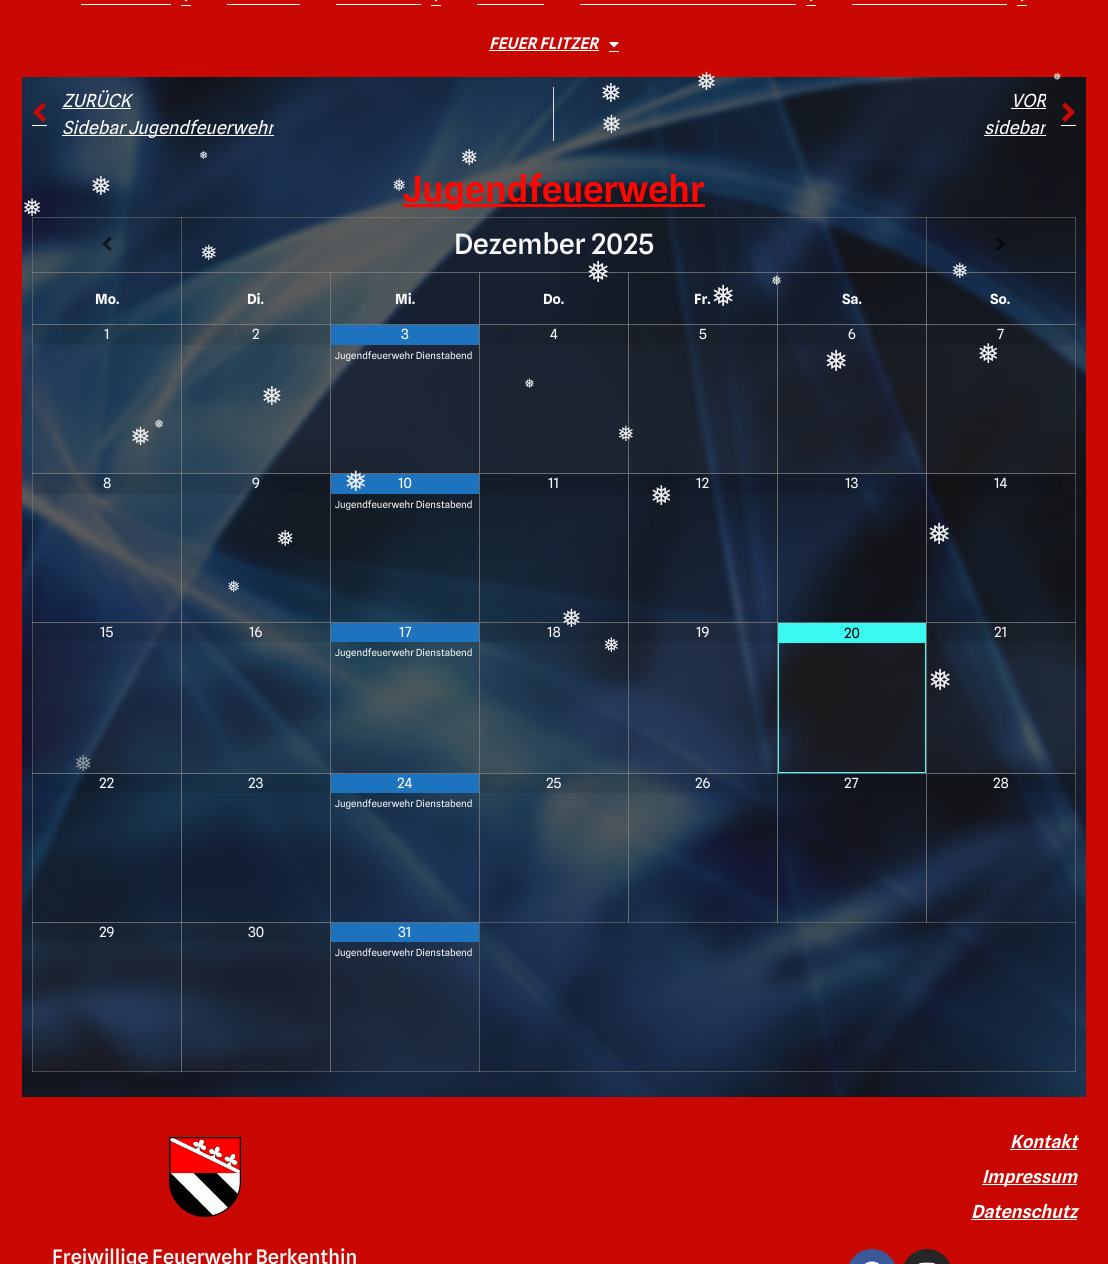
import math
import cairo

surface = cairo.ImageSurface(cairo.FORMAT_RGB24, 1108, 1264)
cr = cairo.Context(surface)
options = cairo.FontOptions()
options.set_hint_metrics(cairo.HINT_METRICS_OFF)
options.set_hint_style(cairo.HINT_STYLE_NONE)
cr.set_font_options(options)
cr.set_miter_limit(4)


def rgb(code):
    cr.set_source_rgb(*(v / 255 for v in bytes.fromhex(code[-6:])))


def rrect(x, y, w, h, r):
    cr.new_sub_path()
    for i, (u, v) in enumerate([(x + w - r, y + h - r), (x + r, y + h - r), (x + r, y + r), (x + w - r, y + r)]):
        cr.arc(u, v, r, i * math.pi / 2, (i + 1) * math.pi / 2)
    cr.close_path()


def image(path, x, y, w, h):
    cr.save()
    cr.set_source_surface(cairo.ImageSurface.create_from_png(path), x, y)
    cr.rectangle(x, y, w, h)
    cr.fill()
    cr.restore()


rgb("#ffffff")
cr.paint()
image("img/1.png", 22, 77, 1064, 1020)
rgb("#c90803")
cr.rectangle(0, 0, 1108, 77)
cr.fill()
rgb("#ffffff")
cr.rectangle(81, 4, 90, 1)
cr.fill()
image("img/2.png", 184, 0, 4, 2)
for x, y, w, h, color in [
    (181, 5, 10, 1, "#ffffff"),
    (227, 4, 73, 1, "#ffffff"),
    (336, 4, 85, 1, "#ffffff"),
]:
    rgb(color)
    cr.rectangle(x, y, w, h)
    cr.fill()
image("img/2.png", 434, 0, 4, 2)
for x, y, w, h, color in [
    (431, 5, 10, 1, "#ffffff"),
    (477, 4, 67, 1, "#ffffff"),
    (580, 4, 216, 1, "#ffffff"),
]:
    rgb(color)
    cr.rectangle(x, y, w, h)
    cr.fill()
image("img/2.png", 809, 0, 4, 2)
cr.rectangle(806, 5, 10, 1)
cr.fill()
cr.rectangle(852, 4, 155, 1)
cr.fill()
image("img/2.png", 1020, 0, 4, 2)
cr.rectangle(1017, 5, 10, 1)
cr.fill()
cr.rectangle(489, 50, 110, 1)
cr.fill()
image("img/3.png", 609, 42, 10, 6)
cr.rectangle(609, 51, 10, 1)
cr.fill()
rgb("#c90803")
cr.rectangle(0, 77, 22, 1020)
cr.fill()
cr.set_source_rgba(0, 0, 0, 0.64)
cr.rectangle(22, 77, 1064, 1020)
cr.fill()
image("img/4.png", 33, 102, 13, 20)
for x, y, w, h, color in [
    (32, 125, 15, 1, "#ffffff"),
    (62, 108, 69, 1, "#ffffff"),
    (62, 135, 212, 1, "#ffffff"),
    (553, 87, 1, 54, "#d5d8dc"),
    (1011, 108, 35, 1, "#ffffff"),
    (984, 135, 62, 1, "#ffffff"),
]:
    rgb(color)
    cr.rectangle(x, y, w, h)
    cr.fill()
image("img/5.png", 1062, 102, 13, 20)
cr.rectangle(1061, 125, 15, 1)
cr.fill()
rgb("#ff0700")
cr.rectangle(403, 204, 302, 3)
cr.fill()
cr.set_source_rgba(0.502, 0.502, 0.502, 0.5)
cr.rectangle(926, 217, 150, 1)
cr.fill()
cr.rectangle(926, 272, 150, 1)
cr.fill()
cr.rectangle(926, 324, 150, 1)
cr.fill()
cr.set_source_rgba(0.502, 0.502, 0.502, 0.07)
cr.rectangle(926, 325, 149, 149)
cr.fill()
cr.set_source_rgba(0.502, 0.502, 0.502, 0.5)
cr.rectangle(926, 473, 150, 1)
cr.fill()
cr.rectangle(926, 622, 150, 1)
cr.fill()
cr.set_source_rgba(0.502, 0.502, 0.502, 0.07)
cr.rectangle(926, 623, 149, 151)
cr.fill()
cr.set_source_rgba(0.502, 0.502, 0.502, 0.5)
cr.rectangle(926, 773, 150, 1)
cr.fill()
cr.rectangle(1075, 922, 1, 150)
cr.fill()
cr.rectangle(1075, 773, 1, 150)
cr.fill()
cr.rectangle(1075, 622, 1, 152)
cr.fill()
cr.rectangle(1075, 473, 1, 150)
cr.fill()
cr.rectangle(1075, 324, 1, 150)
cr.fill()
cr.rectangle(1075, 272, 1, 53)
cr.fill()
cr.rectangle(1075, 217, 1, 56)
cr.fill()
cr.set_source_rgba(0.502, 0.502, 0.502, 0.07)
cr.rectangle(777, 325, 149, 149)
cr.fill()
cr.rectangle(777, 623, 149, 151)
cr.fill()
cr.set_source_rgba(0, 0, 0, 0.04)
cr.rectangle(926, 922, 149, 149)
cr.fill()
cr.set_source_rgba(0.502, 0.502, 0.502, 0.5)
cr.rectangle(926, 922, 150, 1)
cr.fill()
cr.rectangle(926, 773, 1, 150)
cr.fill()
cr.rectangle(777, 773, 150, 1)
cr.fill()
cr.rectangle(926, 773, 1, 150)
cr.fill()
cr.rectangle(926, 773, 150, 1)
cr.fill()
cr.rectangle(926, 622, 1, 152)
cr.fill()
cr.rectangle(777, 622, 150, 1)
cr.fill()
cr.rectangle(926, 622, 1, 152)
cr.fill()
cr.rectangle(926, 622, 150, 1)
cr.fill()
cr.rectangle(926, 473, 1, 150)
cr.fill()
cr.rectangle(777, 473, 150, 1)
cr.fill()
cr.rectangle(926, 473, 1, 150)
cr.fill()
cr.rectangle(926, 473, 150, 1)
cr.fill()
cr.rectangle(926, 324, 1, 150)
cr.fill()
cr.rectangle(777, 324, 150, 1)
cr.fill()
cr.rectangle(926, 324, 1, 150)
cr.fill()
cr.rectangle(926, 324, 150, 1)
cr.fill()
cr.rectangle(926, 272, 1, 53)
cr.fill()
cr.rectangle(777, 272, 150, 1)
cr.fill()
cr.rectangle(926, 272, 1, 53)
cr.fill()
cr.rectangle(926, 272, 150, 1)
cr.fill()
cr.rectangle(926, 217, 1, 56)
cr.fill()
cr.rectangle(181, 217, 746, 1)
cr.fill()
cr.set_source_rgba(0.502, 0.502, 0.502, 0.07)
cr.rectangle(628, 325, 149, 149)
cr.fill()
cr.rectangle(628, 623, 149, 151)
cr.fill()
cr.set_source_rgba(0, 0, 0, 0.04)
cr.rectangle(777, 922, 149, 108)
cr.fill()
cr.set_source_rgba(0.502, 0.502, 0.502, 0.5)
cr.rectangle(777, 922, 150, 1)
cr.fill()
cr.rectangle(777, 773, 1, 150)
cr.fill()
cr.rectangle(628, 773, 150, 1)
cr.fill()
cr.rectangle(777, 773, 1, 150)
cr.fill()
cr.rectangle(777, 773, 150, 1)
cr.fill()
cr.rectangle(777, 622, 1, 152)
cr.fill()
cr.rectangle(628, 622, 150, 1)
cr.fill()
cr.rectangle(777, 622, 1, 152)
cr.fill()
cr.rectangle(777, 622, 150, 1)
cr.fill()
cr.rectangle(777, 473, 1, 150)
cr.fill()
cr.rectangle(628, 473, 150, 1)
cr.fill()
cr.rectangle(777, 473, 1, 150)
cr.fill()
cr.rectangle(777, 473, 150, 1)
cr.fill()
cr.rectangle(777, 324, 1, 150)
cr.fill()
cr.rectangle(628, 324, 150, 1)
cr.fill()
cr.rectangle(777, 324, 1, 150)
cr.fill()
cr.rectangle(777, 324, 150, 1)
cr.fill()
cr.rectangle(777, 272, 1, 53)
cr.fill()
cr.rectangle(628, 272, 150, 1)
cr.fill()
cr.rectangle(777, 272, 1, 53)
cr.fill()
cr.set_source_rgba(0.502, 0.502, 0.502, 0.07)
cr.rectangle(331, 325, 149, 149)
cr.fill()
cr.rectangle(480, 325, 148, 149)
cr.fill()
cr.rectangle(331, 623, 149, 151)
cr.fill()
cr.rectangle(480, 623, 148, 151)
cr.fill()
cr.set_source_rgba(0, 0, 0, 0.04)
cr.rectangle(628, 922, 149, 149)
cr.fill()
cr.set_source_rgba(0.502, 0.502, 0.502, 0.5)
cr.rectangle(628, 922, 150, 1)
cr.fill()
cr.rectangle(628, 773, 1, 150)
cr.fill()
cr.rectangle(479, 773, 150, 1)
cr.fill()
cr.rectangle(628, 773, 1, 150)
cr.fill()
cr.rectangle(628, 773, 150, 1)
cr.fill()
cr.rectangle(628, 622, 1, 152)
cr.fill()
cr.rectangle(479, 622, 150, 1)
cr.fill()
cr.rectangle(628, 622, 1, 152)
cr.fill()
cr.rectangle(628, 622, 150, 1)
cr.fill()
cr.rectangle(628, 473, 1, 150)
cr.fill()
cr.rectangle(479, 473, 150, 1)
cr.fill()
cr.rectangle(628, 473, 1, 150)
cr.fill()
cr.rectangle(628, 473, 150, 1)
cr.fill()
cr.rectangle(628, 324, 1, 150)
cr.fill()
cr.rectangle(479, 324, 150, 1)
cr.fill()
cr.rectangle(628, 324, 1, 150)
cr.fill()
cr.rectangle(628, 324, 150, 1)
cr.fill()
cr.rectangle(628, 272, 1, 53)
cr.fill()
cr.rectangle(479, 272, 150, 1)
cr.fill()
cr.rectangle(628, 272, 1, 53)
cr.fill()
cr.set_source_rgba(0.502, 0.502, 0.502, 0.07)
cr.rectangle(182, 325, 149, 149)
cr.fill()
cr.rectangle(182, 623, 149, 151)
cr.fill()
cr.rectangle(331, 922, 149, 149)
cr.fill()
cr.rectangle(182, 922, 149, 149)
cr.fill()
cr.set_source_rgba(0.502, 0.502, 0.502, 0.5)
cr.rectangle(330, 922, 150, 1)
cr.fill()
cr.rectangle(926, 1071, 150, 1)
cr.fill()
cr.rectangle(777, 1071, 150, 1)
cr.fill()
cr.rectangle(628, 1071, 150, 1)
cr.fill()
cr.rectangle(479, 1071, 150, 1)
cr.fill()
cr.rectangle(479, 922, 1, 150)
cr.fill()
cr.set_source_rgba(0, 0, 0, 0.04)
cr.rectangle(480, 922, 148, 149)
cr.fill()
cr.set_source_rgba(0.502, 0.502, 0.502, 0.5)
cr.rectangle(479, 922, 150, 1)
cr.fill()
cr.rectangle(479, 773, 1, 150)
cr.fill()
cr.rectangle(330, 773, 150, 1)
cr.fill()
cr.rectangle(479, 773, 1, 150)
cr.fill()
cr.rectangle(479, 773, 150, 1)
cr.fill()
cr.rectangle(479, 622, 1, 152)
cr.fill()
cr.rectangle(330, 622, 150, 1)
cr.fill()
cr.rectangle(479, 622, 1, 152)
cr.fill()
cr.rectangle(479, 622, 150, 1)
cr.fill()
cr.rectangle(479, 473, 1, 150)
cr.fill()
cr.rectangle(330, 473, 150, 1)
cr.fill()
cr.rectangle(479, 473, 1, 150)
cr.fill()
cr.rectangle(479, 473, 150, 1)
cr.fill()
cr.rectangle(479, 324, 1, 150)
cr.fill()
cr.rectangle(330, 324, 150, 1)
cr.fill()
cr.rectangle(479, 324, 1, 150)
cr.fill()
cr.rectangle(479, 324, 150, 1)
cr.fill()
cr.rectangle(479, 272, 1, 53)
cr.fill()
cr.rectangle(330, 272, 150, 1)
cr.fill()
cr.rectangle(479, 272, 1, 53)
cr.fill()
cr.set_source_rgba(0.502, 0.502, 0.502, 0.07)
cr.rectangle(33, 325, 149, 149)
cr.fill()
cr.rectangle(33, 623, 149, 151)
cr.fill()
cr.rectangle(33, 922, 149, 149)
cr.fill()
cr.set_source_rgba(0.502, 0.502, 0.502, 0.5)
cr.rectangle(330, 1071, 150, 1)
cr.fill()
cr.rectangle(330, 922, 1, 150)
cr.fill()
cr.rectangle(181, 922, 150, 1)
cr.fill()
cr.rectangle(330, 922, 1, 150)
cr.fill()
cr.rectangle(330, 922, 150, 1)
cr.fill()
cr.rectangle(330, 773, 1, 150)
cr.fill()
cr.rectangle(181, 773, 150, 1)
cr.fill()
cr.rectangle(330, 773, 1, 150)
cr.fill()
cr.rectangle(330, 773, 150, 1)
cr.fill()
cr.rectangle(330, 622, 1, 152)
cr.fill()
cr.rectangle(181, 622, 150, 1)
cr.fill()
cr.rectangle(330, 622, 1, 152)
cr.fill()
cr.rectangle(330, 622, 150, 1)
cr.fill()
cr.rectangle(330, 473, 1, 150)
cr.fill()
cr.rectangle(181, 473, 150, 1)
cr.fill()
cr.rectangle(330, 473, 1, 150)
cr.fill()
cr.rectangle(330, 473, 150, 1)
cr.fill()
cr.rectangle(330, 324, 1, 150)
cr.fill()
cr.rectangle(181, 324, 150, 1)
cr.fill()
cr.rectangle(330, 324, 1, 150)
cr.fill()
cr.rectangle(330, 324, 150, 1)
cr.fill()
cr.rectangle(330, 272, 1, 53)
cr.fill()
cr.rectangle(181, 272, 150, 1)
cr.fill()
cr.rectangle(330, 272, 1, 53)
cr.fill()
cr.rectangle(181, 1071, 150, 1)
cr.fill()
cr.rectangle(181, 922, 1, 150)
cr.fill()
cr.rectangle(32, 922, 150, 1)
cr.fill()
cr.rectangle(181, 922, 1, 150)
cr.fill()
cr.rectangle(181, 922, 150, 1)
cr.fill()
cr.rectangle(181, 773, 1, 150)
cr.fill()
cr.rectangle(32, 773, 150, 1)
cr.fill()
cr.rectangle(181, 773, 1, 150)
cr.fill()
cr.rectangle(181, 773, 150, 1)
cr.fill()
cr.rectangle(181, 622, 1, 152)
cr.fill()
cr.rectangle(32, 622, 150, 1)
cr.fill()
cr.rectangle(181, 622, 1, 152)
cr.fill()
cr.rectangle(181, 622, 150, 1)
cr.fill()
cr.rectangle(181, 473, 1, 150)
cr.fill()
cr.rectangle(32, 473, 150, 1)
cr.fill()
cr.rectangle(181, 473, 1, 150)
cr.fill()
cr.rectangle(181, 473, 150, 1)
cr.fill()
cr.rectangle(181, 324, 1, 150)
cr.fill()
cr.rectangle(32, 324, 150, 1)
cr.fill()
cr.rectangle(181, 324, 1, 150)
cr.fill()
cr.rectangle(181, 324, 150, 1)
cr.fill()
cr.rectangle(181, 272, 1, 53)
cr.fill()
cr.rectangle(32, 272, 150, 1)
cr.fill()
cr.rectangle(181, 272, 1, 53)
cr.fill()
cr.rectangle(181, 272, 746, 1)
cr.fill()
cr.rectangle(181, 217, 1, 56)
cr.fill()
cr.rectangle(32, 217, 150, 1)
cr.fill()
cr.rectangle(32, 1071, 150, 1)
cr.fill()
cr.rectangle(32, 922, 1, 150)
cr.fill()
cr.rectangle(32, 922, 150, 1)
cr.fill()
cr.rectangle(32, 773, 1, 150)
cr.fill()
cr.rectangle(32, 773, 150, 1)
cr.fill()
cr.rectangle(32, 622, 1, 152)
cr.fill()
cr.rectangle(32, 622, 150, 1)
cr.fill()
cr.rectangle(32, 473, 1, 150)
cr.fill()
cr.rectangle(32, 473, 150, 1)
cr.fill()
cr.rectangle(32, 324, 1, 150)
cr.fill()
cr.rectangle(32, 324, 150, 1)
cr.fill()
cr.rectangle(32, 272, 1, 53)
cr.fill()
cr.rectangle(32, 272, 150, 1)
cr.fill()
cr.rectangle(32, 217, 1, 56)
cr.fill()
image("img/6.png", 102, 236, 10, 15)
image("img/7.png", 996, 237, 9, 14)
cr.set_source_rgba(0, 0, 0, 0.1)
cr.rectangle(33, 325, 148, 20)
cr.fill()
cr.rectangle(182, 325, 148, 20)
cr.fill()
rgb("#1e73be")
cr.rectangle(331, 325, 148, 20)
cr.fill()
cr.set_source_rgba(0, 0, 0, 0.1)
cr.rectangle(480, 325, 148, 20)
cr.fill()
cr.rectangle(629, 325, 148, 20)
cr.fill()
cr.rectangle(778, 325, 148, 20)
cr.fill()
cr.rectangle(927, 325, 148, 20)
cr.fill()
cr.rectangle(33, 474, 148, 20)
cr.fill()
cr.rectangle(182, 474, 148, 20)
cr.fill()
rgb("#1e73be")
cr.rectangle(331, 474, 148, 20)
cr.fill()
cr.set_source_rgba(0, 0, 0, 0.1)
cr.rectangle(480, 474, 148, 20)
cr.fill()
cr.rectangle(629, 474, 148, 20)
cr.fill()
cr.rectangle(778, 474, 148, 20)
cr.fill()
cr.rectangle(927, 474, 135, 20)
cr.fill()
cr.rectangle(33, 623, 148, 19)
cr.fill()
cr.rectangle(182, 623, 148, 19)
cr.fill()
rgb("#1e73be")
cr.rectangle(331, 623, 148, 19)
cr.fill()
cr.set_source_rgba(0, 0, 0, 0.1)
cr.rectangle(480, 623, 148, 19)
cr.fill()
cr.rectangle(629, 623, 148, 19)
cr.fill()
cr.rectangle(778.5, 623.5, 147, 149)
rgb("#39f9f0")
cr.set_line_width(1)
cr.stroke()
cr.rectangle(779, 624, 146, 19)
cr.fill()
cr.set_source_rgba(0, 0, 0, 0.1)
cr.rectangle(927, 623, 148, 19)
cr.fill()
cr.rectangle(33, 774, 148, 19)
cr.fill()
cr.rectangle(182, 774, 148, 19)
cr.fill()
rgb("#1e73be")
cr.rectangle(331, 774, 148, 19)
cr.fill()
cr.set_source_rgba(0, 0, 0, 0.1)
cr.rectangle(480, 774, 148, 19)
cr.fill()
cr.rectangle(629, 774, 148, 19)
cr.fill()
cr.rectangle(778, 774, 148, 19)
cr.fill()
cr.rectangle(927, 774, 148, 19)
cr.fill()
cr.rectangle(33, 923, 148, 19)
cr.fill()
cr.rectangle(182, 923, 148, 19)
cr.fill()
rgb("#1e73be")
cr.rectangle(331, 923, 148, 19)
cr.fill()
rgb("#c90803")
cr.rectangle(1086, 77, 22, 1020)
cr.rectangle(0, 1097, 1108, 167)
cr.fill()
rgb("#ffffff")
cr.rectangle(1010, 1149, 67, 1)
cr.rectangle(982, 1184, 95, 1)
cr.rectangle(971, 1219, 106, 1)
cr.fill()
rgb("#3b5998")
rrect(847, 1249, 50, 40, 25)
cr.fill()
image("img/8.png", 864, 1261, 16, 3)
rgb("#262626")
rrect(902, 1249, 50, 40, 25)
cr.fill()
image("img/9.png", 918, 1262, 18, 2)
image("img/10.png", 169, 1137, 72, 80)
cr.select_font_face("Spline Sans SemiBold", cairo.FONT_SLANT_ITALIC)
cr.set_font_size(16)
rgb("#ffffff")
cr.move_to(489, 49)
cr.show_text("FEUER FLITZER")
cr.select_font_face("DejaVu Sans")
cr.set_font_size(25)
rgb("#efefef")
cr.move_to(696, 90)
cr.show_text("❅")
cr.set_font_size(10)
cr.move_to(1053, 80)
cr.show_text("❅")
cr.set_font_size(26)
cr.move_to(600, 102)
cr.show_text("❅")
cr.set_font_size(25)
cr.move_to(601, 133)
cr.show_text("❅")
cr.set_font_size(11)
cr.move_to(199, 159)
cr.show_text("❅")
cr.set_font_size(22)
cr.move_to(460, 165)
cr.show_text("❅")
cr.set_font_size(26)
cr.move_to(90, 195)
cr.show_text("❅")
cr.set_font_size(24)
cr.move_to(22, 216)
cr.show_text("❅")
cr.set_font_size(21)
cr.move_to(200, 260)
cr.show_text("❅")
cr.set_font_size(29)
cr.move_to(586, 282)
cr.show_text("❅")
cr.set_font_size(21)
cr.move_to(951, 278)
cr.show_text("❅")
cr.set_font_size(13)
cr.move_to(771, 285)
cr.show_text("❅")
cr.set_font_size(29)
cr.move_to(711, 306)
cr.show_text("❅")
cr.move_to(824, 371)
cr.show_text("❅")
cr.set_font_size(27)
cr.move_to(977, 363)
cr.show_text("❅")
cr.set_font_size(13)
cr.move_to(524, 388)
cr.show_text("❅")
cr.set_font_size(26)
cr.move_to(261, 405)
cr.show_text("❅")
cr.set_font_size(12)
cr.move_to(154, 428)
cr.show_text("❅")
cr.set_font_size(25)
cr.move_to(130, 445)
cr.show_text("❅")
cr.set_font_size(21)
cr.move_to(617, 441)
cr.show_text("❅")
cr.set_font_size(28)
cr.move_to(344, 491)
cr.show_text("❅")
cr.set_font_size(27)
cr.move_to(650, 505)
cr.show_text("❅")
cr.set_font_size(22)
cr.move_to(276, 546)
cr.show_text("❅")
cr.set_font_size(29)
cr.move_to(927, 544)
cr.show_text("❅")
cr.set_font_size(16)
cr.move_to(227, 592)
cr.show_text("❅")
cr.set_font_size(25)
cr.move_to(561, 627)
cr.show_text("❅")
cr.set_font_size(20)
cr.move_to(603, 652)
cr.show_text("❅")
cr.set_font_size(29)
cr.move_to(928, 690)
cr.show_text("❅")
cr.set_font_size(22)
rgb("#8b96a2")
cr.move_to(74, 771)
cr.show_text("❅")
cr.select_font_face("Spline Sans", cairo.FONT_SLANT_ITALIC)
cr.set_font_size(18)
rgb("#ffffff")
cr.move_to(62, 107)
cr.show_text("ZURÜCK")
cr.save()
cr.rectangle(62, 114, 212, 27)
cr.clip()
cr.move_to(62, 134)
cr.show_text("Sidebar Jugendfeuerwehr")
cr.restore()
cr.save()
cr.rectangle(984, 87, 62, 27)
cr.clip()
cr.move_to(1011, 107)
cr.show_text("VOR")
cr.restore()
cr.save()
cr.rectangle(984, 114, 62, 27)
cr.clip()
cr.move_to(984, 134)
cr.show_text("sidebar")
cr.restore()
cr.select_font_face("Spline Sans SemiBold")
cr.set_font_size(36)
rgb("#ff0700")
cr.move_to(403, 202)
cr.show_text("Jugendfeuerwehr")
cr.select_font_face("DejaVu Sans")
cr.set_font_size(17)
rgb("#efefef")
cr.move_to(392, 191)
cr.show_text("❅")
cr.select_font_face("Spline Sans Medium")
cr.set_font_size(28)
rgb("#f8f8f9")
cr.move_to(454, 254)
cr.show_text("Dezember")
cr.move_to(591, 254)
cr.show_text("2025")
cr.select_font_face("Spline Sans", cairo.FONT_SLANT_NORMAL, cairo.FONT_WEIGHT_BOLD)
cr.set_font_size(14)
for x, y, s in [
    (95, 304, "Mo."),
    (247, 304, "Di."),
    (395, 304, "Mi."),
    (543, 304, "Do."),
    (694, 304, "Fr."),
    (842, 304, "Sa."),
    (990, 304, "So."),
]:
    cr.move_to(x, y)
    cr.show_text(s)
cr.select_font_face("Spline Sans")
cr.move_to(104, 339)
cr.show_text("1")
cr.move_to(252, 339)
cr.show_text("2")
rgb("#ffffff")
cr.move_to(401, 339)
cr.show_text("3")
cr.set_font_size(9.75)
rgb("#f8f8f9")
cr.move_to(335, 359)
cr.show_text("Jugendfeuerwehr Dienstabend")
cr.set_font_size(14)
for x, y, s in [
    (550, 339, "4"),
    (699, 339, "5"),
    (848, 339, "6"),
    (997, 339, "7"),
    (103, 488, "8"),
    (252, 488, "9"),
]:
    cr.move_to(x, y)
    cr.show_text(s)
rgb("#ffffff")
cr.move_to(398, 488)
cr.show_text("10")
cr.set_font_size(9.75)
rgb("#f8f8f9")
cr.move_to(335, 508)
cr.show_text("Jugendfeuerwehr Dienstabend")
cr.set_font_size(14)
for x, y, s in [
    (548, 488, "11"),
    (696, 488, "12"),
    (845, 488, "13"),
    (994, 488, "14"),
    (100, 637, "15"),
    (249, 637, "16"),
]:
    cr.move_to(x, y)
    cr.show_text(s)
rgb("#ffffff")
cr.move_to(399, 637)
cr.show_text("17")
cr.set_font_size(9.75)
rgb("#f8f8f9")
cr.move_to(335, 656)
cr.show_text("Jugendfeuerwehr Dienstabend")
cr.set_font_size(14)
cr.move_to(547, 637)
cr.show_text("18")
cr.move_to(696, 637)
cr.show_text("19")
rgb("#000000")
cr.move_to(844, 638)
cr.show_text("20")
rgb("#f8f8f9")
for x, y, s in [
    (994, 637, "21"),
    (99, 788, "22"),
    (248, 788, "23"),
]:
    cr.move_to(x, y)
    cr.show_text(s)
rgb("#ffffff")
cr.move_to(397, 788)
cr.show_text("24")
cr.set_font_size(9.75)
rgb("#f8f8f9")
cr.move_to(335, 807)
cr.show_text("Jugendfeuerwehr Dienstabend")
cr.set_font_size(14)
for x, y, s in [
    (546, 788, "25"),
    (695, 788, "26"),
    (844, 788, "27"),
    (993, 788, "28"),
    (99, 937, "29"),
    (248, 937, "30"),
]:
    cr.move_to(x, y)
    cr.show_text(s)
rgb("#ffffff")
cr.move_to(398, 937)
cr.show_text("31")
cr.set_font_size(9.75)
rgb("#f8f8f9")
cr.move_to(335, 956)
cr.show_text("Jugendfeuerwehr Dienstabend")
cr.select_font_face("Spline Sans SemiBold", cairo.FONT_SLANT_ITALIC)
cr.set_font_size(18)
rgb("#ffffff")
for x, y, s in [
    (1010, 1148, "Kontakt"),
    (982, 1183, "Impressum"),
    (971, 1218, "Datenschutz"),
]:
    cr.move_to(x, y)
    cr.show_text(s)
cr.select_font_face("Spline Sans Medium")
cr.set_font_size(20)
rgb("#f8f8f9")
cr.move_to(52, 1264)
cr.show_text("Freiwillige Feuerwehr Berkenthin")
surface.write_to_png("page.png")
